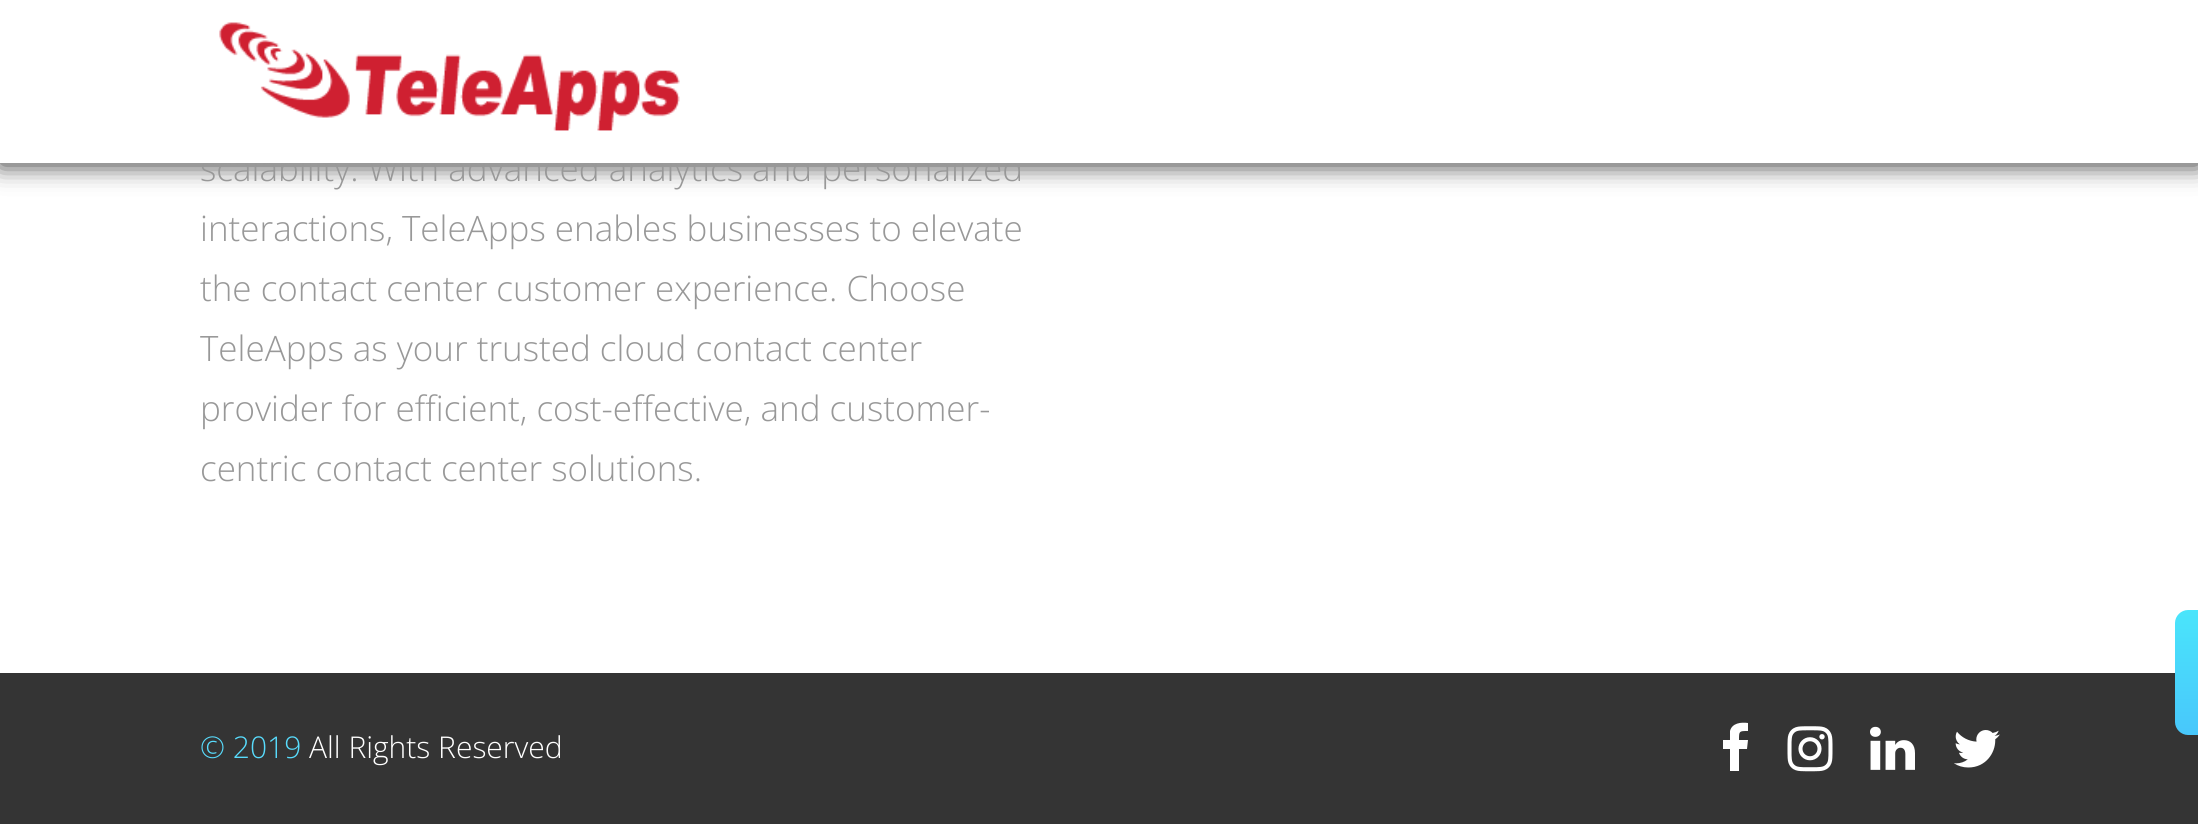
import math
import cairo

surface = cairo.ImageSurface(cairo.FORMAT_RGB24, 2198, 824)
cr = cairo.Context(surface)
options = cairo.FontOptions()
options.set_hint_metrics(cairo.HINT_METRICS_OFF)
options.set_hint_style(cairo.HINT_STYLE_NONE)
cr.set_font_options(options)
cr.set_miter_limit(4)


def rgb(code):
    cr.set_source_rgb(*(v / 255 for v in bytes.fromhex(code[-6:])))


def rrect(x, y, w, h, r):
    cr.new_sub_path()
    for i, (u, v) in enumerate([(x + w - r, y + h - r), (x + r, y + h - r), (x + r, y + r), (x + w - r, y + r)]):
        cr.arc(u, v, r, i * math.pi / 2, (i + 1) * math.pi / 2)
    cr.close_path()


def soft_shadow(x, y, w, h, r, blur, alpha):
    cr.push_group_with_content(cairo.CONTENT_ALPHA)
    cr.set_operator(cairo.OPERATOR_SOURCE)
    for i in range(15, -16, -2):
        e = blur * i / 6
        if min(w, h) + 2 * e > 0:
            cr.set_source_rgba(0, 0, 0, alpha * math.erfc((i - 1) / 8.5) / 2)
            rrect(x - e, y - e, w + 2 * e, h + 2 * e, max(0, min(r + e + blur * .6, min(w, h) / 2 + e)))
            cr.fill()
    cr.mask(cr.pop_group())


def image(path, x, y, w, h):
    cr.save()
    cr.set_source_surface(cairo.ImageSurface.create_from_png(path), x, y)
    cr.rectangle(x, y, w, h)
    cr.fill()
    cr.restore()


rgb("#ffffff")
cr.paint()
rgb("#343434")
soft_shadow(0, 3, 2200, 162, 0, 12.5, 1)
rgb("#343434")
cr.rectangle(0, 673, 2198, 151)
cr.fill()
gradient = cairo.LinearGradient(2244, 610, 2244, 735)
gradient.add_color_stop_rgba(0, 0.29, 0.898, 0.984, 1)
gradient.add_color_stop_rgba(1, 0.282, 0.78, 0.984, 1)
cr.set_source(gradient)
cr.new_path()
cr.move_to(2188, 610)
cr.line_to(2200, 610)
cr.line_to(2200, 735)
cr.line_to(2188, 735)
cr.curve_to(2181, 735, 2175, 729, 2175, 722)
cr.line_to(2175, 623)
cr.curve_to(2175, 616, 2181, 610, 2188, 610)
cr.close_path()
cr.fill()
rgb("#ffffff")
cr.new_path()
cr.move_to(1748, 723)
cr.curve_to(1741, 722, 1732, 723, 1730, 731)
cr.line_to(1730, 740)
cr.line_to(1723, 740)
cr.line_to(1723, 749)
cr.line_to(1730, 749)
cr.line_to(1730, 771)
cr.line_to(1739, 771)
cr.line_to(1739, 749)
cr.line_to(1747, 749)
cr.line_to(1748, 740)
cr.line_to(1739, 740)
cr.curve_to(1739, 731, 1739, 731, 1748, 731)
cr.close_path()
cr.fill()
image("img/2.png", 1787, 726, 46, 46)
image("img/3.png", 1870, 726, 45, 44)
image("img/4.png", 1954, 730, 46, 38)
cr.select_font_face("Open Sans Light")
cr.set_font_size(35)
rgb("#989898")
cr.move_to(200, 181)
cr.show_text("scalability. With advanced analytics and personalized")
rgb("#ffffff")
cr.rectangle(0, 0, 2198, 163)
cr.fill()
image("img/1.png", 219, 22, 461, 109)
rgb("#989898")
for x, y, s in [
    (200, 241, "interactions, TeleApps enables businesses to elevate"),
    (200, 301, "the contact center customer experience. Choose"),
    (200, 361, "TeleApps as your trusted cloud contact center"),
    (200, 421, "provider for efficient, cost-effective, and customer-"),
    (200, 481, "centric contact center solutions."),
]:
    cr.move_to(x, y)
    cr.show_text(s)
cr.set_font_size(30)
rgb("#58dcfd")
cr.move_to(200, 758)
cr.show_text("© 2019")
rgb("#ffffff")
cr.move_to(309, 758)
cr.show_text("All Rights Reserved")
surface.write_to_png("page.png")
